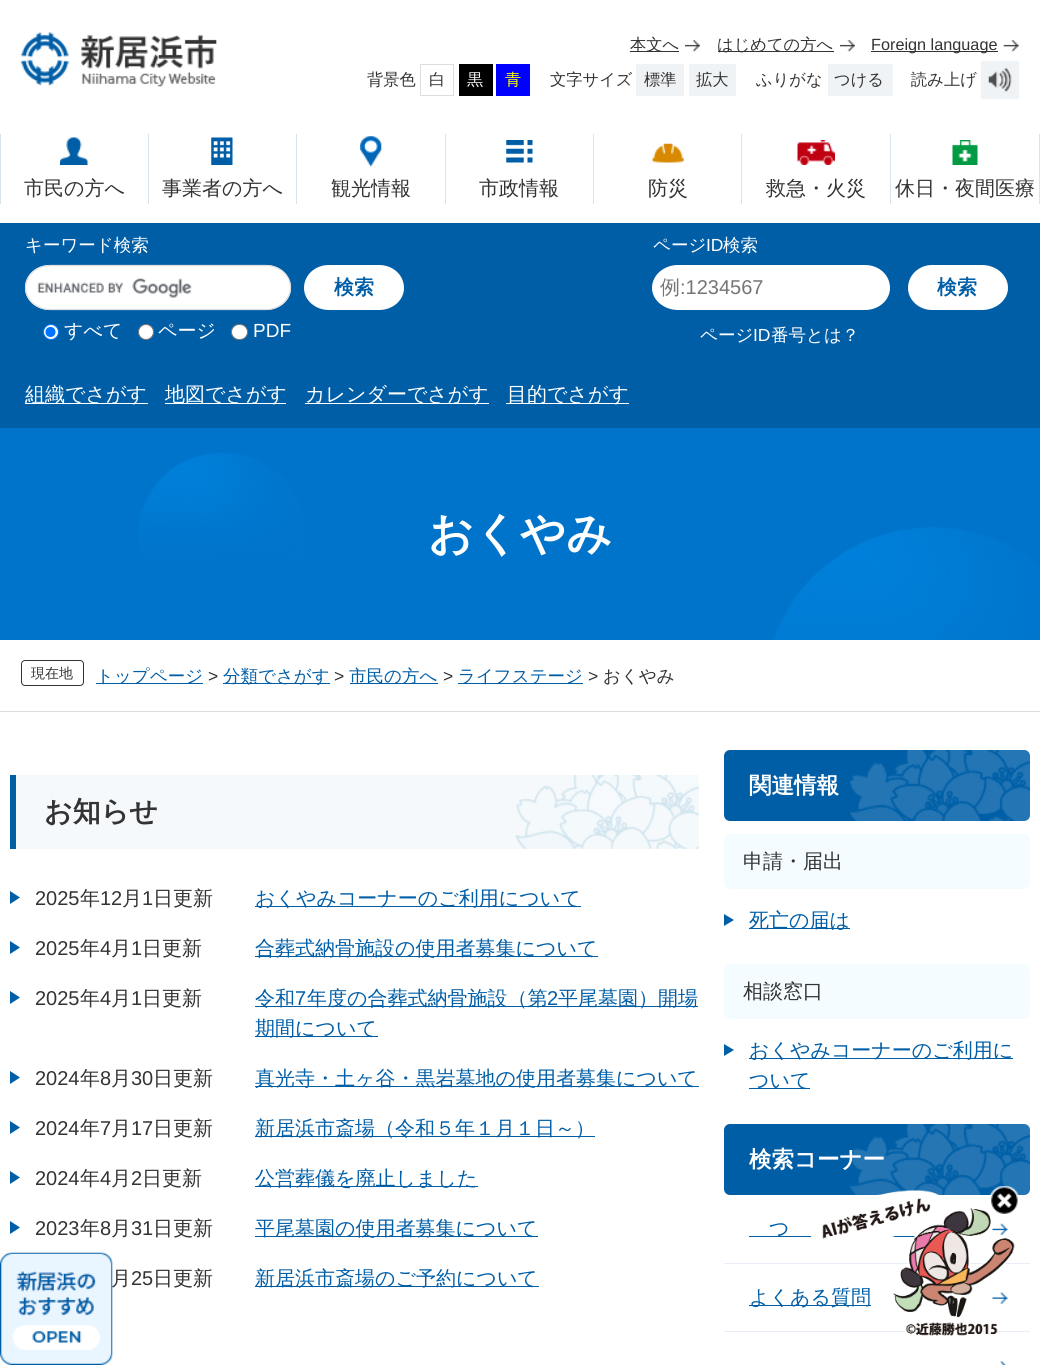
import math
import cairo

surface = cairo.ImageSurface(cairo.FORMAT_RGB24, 1040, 1365)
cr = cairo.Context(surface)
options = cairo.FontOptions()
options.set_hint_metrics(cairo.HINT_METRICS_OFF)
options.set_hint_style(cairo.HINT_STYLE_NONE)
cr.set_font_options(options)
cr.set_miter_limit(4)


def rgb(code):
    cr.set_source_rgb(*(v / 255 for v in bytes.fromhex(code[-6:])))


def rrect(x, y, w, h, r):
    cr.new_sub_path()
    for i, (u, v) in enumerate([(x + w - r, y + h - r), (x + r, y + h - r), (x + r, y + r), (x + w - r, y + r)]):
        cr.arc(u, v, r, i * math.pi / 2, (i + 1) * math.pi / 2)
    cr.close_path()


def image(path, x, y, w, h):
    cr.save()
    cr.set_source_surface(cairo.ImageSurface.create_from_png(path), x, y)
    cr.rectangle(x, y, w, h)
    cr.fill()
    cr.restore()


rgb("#ffffff")
cr.paint()
image("img/1.png", 21, 32, 196, 55)
image("img/2.png", 685, 40, 15, 12)
rgb("#333333")
cr.rectangle(630, 51, 49, 1)
cr.fill()
image("img/2.png", 840, 40, 15, 12)
cr.rectangle(718, 51, 116, 1)
cr.fill()
image("img/3.png", 1003, 40, 16, 12)
cr.rectangle(871, 51, 127, 1)
cr.fill()
cr.rectangle(420.5, 64.5, 33, 31)
rgb("#dddddd")
cr.set_line_width(1)
cr.stroke()
for x, y, w, h, color in [
    (459, 64, 34, 32, "#000000"),
    (496, 64, 34, 32, "#0000ff"),
    (636, 64, 48, 32, "#f0f3f5"),
    (689, 64, 47, 32, "#f0f3f5"),
    (828, 64, 65, 32, "#f0f3f5"),
    (981, 61, 38, 38, "#f0f3f5"),
]:
    rgb(color)
    cr.rectangle(x, y, w, h)
    cr.fill()
image("img/4.png", 988, 67, 24, 25)
rgb("#d6e5ed")
cr.rectangle(148, 134, 1, 70)
cr.fill()
cr.rectangle(0, 134, 1, 70)
cr.fill()
image("img/5.png", 60, 137, 28, 28)
cr.rectangle(296, 134, 1, 70)
cr.fill()
image("img/6.png", 211, 137, 22, 28)
cr.rectangle(445, 134, 1, 70)
cr.fill()
image("img/7.png", 360, 136, 22, 31)
cr.rectangle(593, 134, 1, 70)
cr.fill()
image("img/8.png", 506, 140, 27, 23)
cr.rectangle(741, 134, 1, 70)
cr.fill()
image("img/9.png", 652, 143, 32, 20)
cr.rectangle(890, 134, 1, 70)
cr.fill()
image("img/10.png", 797, 140, 38, 25)
cr.rectangle(1039, 134, 1, 70)
cr.fill()
image("img/11.png", 952, 140, 26, 25)
rgb("#005ea7")
cr.rectangle(0, 223, 1040, 205)
cr.fill()
rgb("#ffffff")
cr.new_path()
cr.move_to(50, 265)
cr.line_to(266, 265)
cr.curve_to(280, 265, 291, 275, 291, 288)
cr.curve_to(291, 300, 280, 310, 266, 310)
cr.line_to(50, 310)
cr.curve_to(36, 310, 25, 300, 25, 288)
cr.curve_to(25, 275, 36, 265, 50, 265)
cr.close_path()
cr.fill()
image("img/12.png", 37, 278, 155, 20)
cr.new_path()
cr.move_to(50, 265.5)
cr.line_to(266, 265.5)
cr.curve_to(279.5, 265.5, 290.5, 275.5, 290.5, 287.5)
cr.curve_to(290.5, 299.5, 279.5, 309.5, 266, 309.5)
cr.line_to(50, 309.5)
cr.curve_to(36.5, 309.5, 25.5, 299.5, 25.5, 287.5)
cr.curve_to(25.5, 275.5, 36.5, 265.5, 50, 265.5)
cr.close_path()
rgb("#dddddd")
cr.set_line_width(1.2)
cr.stroke()
rgb("#ffffff")
cr.new_path()
cr.move_to(329, 265)
cr.line_to(379, 265)
cr.curve_to(393, 265, 404, 275, 404, 288)
cr.curve_to(404, 300, 393, 310, 379, 310)
cr.line_to(329, 310)
cr.curve_to(315, 310, 304, 300, 304, 288)
cr.curve_to(304, 275, 315, 265, 329, 265)
cr.close_path()
cr.fill()
cr.arc(51, 332, 7.5, 0, 2 * math.pi)
cr.fill_preserve()
rgb("#0075ff")
cr.set_line_width(1)
cr.stroke()
cr.arc(50.5, 332, 5, 0, 2 * math.pi)
cr.fill()
rgb("#ffffff")
cr.arc(146, 332, 7.5, 0, 2 * math.pi)
cr.fill_preserve()
rgb("#767676")
cr.stroke()
rgb("#ffffff")
rrect(231.5, 324.5, 16, 15, 7.5)
cr.fill_preserve()
rgb("#767676")
cr.stroke()
rgb("#ffffff")
cr.new_path()
cr.move_to(678, 265)
cr.line_to(865, 265)
cr.curve_to(879, 265, 890, 275, 890, 288)
cr.curve_to(890, 300, 879, 310, 865, 310)
cr.line_to(678, 310)
cr.curve_to(664, 310, 652, 300, 652, 288)
cr.curve_to(652, 275, 664, 265, 678, 265)
cr.close_path()
cr.fill()
cr.new_path()
cr.move_to(932, 265)
cr.line_to(982, 265)
cr.curve_to(996, 265, 1008, 275, 1008, 288)
cr.curve_to(1008, 300, 996, 310, 982, 310)
cr.line_to(932, 310)
cr.curve_to(919, 310, 908, 300, 908, 288)
cr.curve_to(908, 275, 919, 265, 932, 265)
cr.close_path()
cr.fill()
for x, y, w, h, color in [
    (25, 403, 123, 1, "#ffffff"),
    (165, 403, 121, 1, "#ffffff"),
    (305, 403, 184, 1, "#ffffff"),
    (506, 403, 123, 1, "#ffffff"),
    (0, 428, 1040, 212, "#0074ca"),
]:
    rgb(color)
    cr.rectangle(x, y, w, h)
    cr.fill()
image("img/13.png", 138, 452, 902, 188)
rgb("#dddddd")
cr.rectangle(0, 711, 1040, 1)
cr.fill()
rrect(21.5, 660.5, 62, 25, 3.5)
rgb("#333333")
cr.stroke()
for x, y, w, h, color in [
    (96, 683, 107, 1, "#005ea7"),
    (223, 683, 107, 1, "#005ea7"),
    (350, 683, 88, 1, "#005ea7"),
    (458, 683, 125, 1, "#005ea7"),
    (16, 775, 683, 74, "#f5f9fb"),
]:
    rgb(color)
    cr.rectangle(x, y, w, h)
    cr.fill()
image("img/14.png", 515, 775, 184, 74)
rgb("#005ea7")
cr.rectangle(10, 775, 6, 74)
cr.fill()
cr.new_path()
cr.move_to(10, 904)
cr.line_to(10, 891)
cr.line_to(20, 897.5)
cr.close_path()
cr.fill()
cr.rectangle(255, 906, 326, 1)
cr.fill()
cr.new_path()
cr.move_to(10, 954)
cr.line_to(10, 941)
cr.line_to(20, 947.5)
cr.close_path()
cr.fill()
cr.rectangle(255, 956, 343, 1)
cr.fill()
cr.new_path()
cr.move_to(10, 1004)
cr.line_to(10, 991)
cr.line_to(20, 997.5)
cr.close_path()
cr.fill()
cr.rectangle(255, 1006, 443, 1)
cr.fill()
cr.rectangle(255, 1036, 123, 1)
cr.fill()
cr.new_path()
cr.move_to(10, 1084)
cr.line_to(10, 1071)
cr.line_to(20, 1077.5)
cr.close_path()
cr.fill()
cr.rectangle(255, 1086, 444, 1)
cr.fill()
cr.new_path()
cr.move_to(10, 1134)
cr.line_to(10, 1121)
cr.line_to(20, 1127.5)
cr.close_path()
cr.fill()
cr.rectangle(255, 1136, 340, 1)
cr.fill()
cr.new_path()
cr.move_to(10, 1184)
cr.line_to(10, 1171)
cr.line_to(20, 1177.5)
cr.close_path()
cr.fill()
cr.rectangle(255, 1186, 223, 1)
cr.fill()
cr.new_path()
cr.move_to(10, 1234)
cr.line_to(10, 1221)
cr.line_to(20, 1227.5)
cr.close_path()
cr.fill()
cr.rectangle(255, 1236, 283, 1)
cr.fill()
cr.rectangle(255, 1286, 284, 1)
cr.fill()
rrect(724, 750, 306, 71, 6)
cr.fill()
image("img/15.png", 850, 750, 180, 71)
rgb("#f4fcff")
rrect(724, 834, 306, 55, 6)
cr.fill()
rgb("#005ea7")
cr.new_path()
cr.move_to(724, 926)
cr.line_to(724, 914)
cr.line_to(734, 920)
cr.close_path()
cr.fill()
cr.rectangle(749, 928, 101, 1)
cr.fill()
rgb("#f4fcff")
rrect(724, 964, 306, 55, 6)
cr.fill()
rgb("#005ea7")
cr.new_path()
cr.move_to(724, 1056)
cr.line_to(724, 1044)
cr.line_to(734, 1050)
cr.close_path()
cr.fill()
cr.rectangle(749, 1058, 264, 1)
cr.fill()
cr.rectangle(749, 1088, 61, 1)
cr.fill()
rrect(724, 1124, 306, 71, 6)
cr.fill()
image("img/16.png", 850, 1124, 180, 71)
rgb("#e9edf7")
cr.rectangle(724, 1263, 306, 1)
cr.fill()
image("img/17.png", 992, 1223, 16, 12)
rgb("#005ea7")
cr.rectangle(749, 1236, 166, 1)
cr.fill()
rgb("#e9edf7")
cr.rectangle(724, 1331, 306, 1)
cr.fill()
image("img/18.png", 992, 1292, 16, 12)
rgb("#005ea7")
cr.rectangle(749, 1305, 122, 1)
cr.fill()
image("img/19.png", 1000, 1361, 6, 4)
cr.select_font_face("WenQuanYi Zen Hei Medium")
cr.set_font_size(16.25)
rgb("#333333")
cr.move_to(630, 50)
cr.show_text("本文へ")
cr.move_to(717, 50)
cr.show_text("はじめての方へ")
cr.select_font_face("Liberation Sans")
cr.move_to(871, 50)
cr.show_text("Foreign language")
cr.select_font_face("WenQuanYi Zen Hei Medium")
cr.move_to(367, 85)
cr.show_text("背景色")
cr.move_to(429, 85)
cr.show_text("白")
rgb("#ffffff")
cr.move_to(467, 85)
cr.show_text("黒")
rgb("#ffff00")
cr.move_to(505, 85)
cr.show_text("青")
rgb("#333333")
for x, y, s in [
    (550, 85, "文字サイズ"),
    (644, 85, "標準"),
    (696, 85, "拡大"),
    (756, 85, "ふりがな"),
    (834, 85, "つける"),
    (911, 85, "読み上げ"),
]:
    cr.move_to(x, y)
    cr.show_text(s)
cr.set_font_size(20)
for x, y, s in [
    (24, 195, "市民の方へ"),
    (162, 195, "事業者の方へ"),
    (331, 195, "観光情報"),
    (479, 195, "市政情報"),
    (648, 195, "防災"),
    (766, 195, "救急・火災"),
    (895, 195, "休日・夜間医療"),
]:
    cr.move_to(x, y)
    cr.show_text(s)
cr.set_font_size(17.5)
rgb("#ffffff")
cr.move_to(25, 251)
cr.show_text("キーワード検索")
cr.select_font_face("WenQuanYi Zen Hei", cairo.FONT_SLANT_NORMAL, cairo.FONT_WEIGHT_BOLD)
cr.set_font_size(20)
rgb("#005ea7")
cr.move_to(334, 294)
cr.show_text("検索")
cr.select_font_face("WenQuanYi Zen Hei Medium")
cr.set_font_size(19)
rgb("#ffffff")
cr.move_to(64, 337)
cr.show_text("すべて")
cr.move_to(158, 337)
cr.show_text("ページ")
cr.select_font_face("Liberation Sans")
cr.move_to(253, 337)
cr.show_text("PDF")
cr.select_font_face("WenQuanYi Zen Hei Medium")
cr.set_font_size(17.5)
cr.move_to(653, 251)
cr.show_text("ページ")
cr.select_font_face("Liberation Sans")
cr.move_to(706, 251)
cr.show_text("ID")
cr.select_font_face("WenQuanYi Zen Hei Medium")
cr.move_to(723, 251)
cr.show_text("検索")
cr.set_font_size(20)
rgb("#757575")
cr.move_to(660, 294)
cr.show_text("例")
cr.select_font_face("Liberation Sans")
cr.move_to(680, 294)
cr.show_text(":1234567")
cr.select_font_face("WenQuanYi Zen Hei", cairo.FONT_SLANT_NORMAL, cairo.FONT_WEIGHT_BOLD)
rgb("#005ea7")
cr.move_to(937, 294)
cr.show_text("検索")
cr.select_font_face("WenQuanYi Zen Hei Medium")
cr.set_font_size(17.5)
rgb("#ffffff")
cr.move_to(700, 341)
cr.show_text("ページ")
cr.select_font_face("Liberation Sans")
cr.move_to(753, 341)
cr.show_text("ID")
cr.select_font_face("WenQuanYi Zen Hei Medium")
cr.move_to(771, 341)
cr.show_text("番号とは？")
cr.set_font_size(20)
for x, y, s in [
    (25, 401, "組織でさがす"),
    (165, 401, "地図でさがす"),
    (305, 401, "カレンダーでさがす"),
    (507, 401, "目的でさがす"),
]:
    cr.move_to(x, y)
    cr.show_text(s)
cr.select_font_face("WenQuanYi Zen Hei", cairo.FONT_SLANT_NORMAL, cairo.FONT_WEIGHT_BOLD)
cr.set_font_size(45)
cr.move_to(428, 549)
cr.show_text("おくやみ")
cr.select_font_face("WenQuanYi Zen Hei Medium")
cr.set_font_size(14)
rgb("#333333")
cr.move_to(31, 678)
cr.show_text("現在地")
cr.set_font_size(17.5)
rgb("#005ea7")
cr.move_to(96, 682)
cr.show_text("トップページ")
cr.select_font_face("Liberation Sans")
rgb("#333333")
cr.move_to(208, 682)
cr.show_text(">")
cr.select_font_face("WenQuanYi Zen Hei Medium")
rgb("#005ea7")
cr.move_to(223, 682)
cr.show_text("分類でさがす")
cr.select_font_face("Liberation Sans")
rgb("#333333")
cr.move_to(334, 682)
cr.show_text(">")
cr.select_font_face("WenQuanYi Zen Hei Medium")
rgb("#005ea7")
cr.move_to(349, 682)
cr.show_text("市民の方へ")
cr.select_font_face("Liberation Sans")
rgb("#333333")
cr.move_to(443, 682)
cr.show_text(">")
cr.select_font_face("WenQuanYi Zen Hei Medium")
rgb("#005ea7")
cr.move_to(458, 682)
cr.show_text("ライフステージ")
cr.select_font_face("Liberation Sans")
rgb("#333333")
cr.move_to(588, 682)
cr.show_text(">")
cr.select_font_face("WenQuanYi Zen Hei Medium")
cr.move_to(603, 682)
cr.show_text("おくやみ")
cr.select_font_face("WenQuanYi Zen Hei", cairo.FONT_SLANT_NORMAL, cairo.FONT_WEIGHT_BOLD)
cr.set_font_size(28)
cr.move_to(44, 821)
cr.show_text("お知らせ")
cr.select_font_face("Liberation Sans")
cr.set_font_size(20)
cr.move_to(35, 905)
cr.show_text("2025")
cr.select_font_face("WenQuanYi Zen Hei Medium")
cr.move_to(80, 905)
cr.show_text("年")
cr.select_font_face("Liberation Sans")
cr.move_to(100, 905)
cr.show_text("12")
cr.select_font_face("WenQuanYi Zen Hei Medium")
cr.move_to(122, 905)
cr.show_text("月")
cr.select_font_face("Liberation Sans")
cr.move_to(142, 905)
cr.show_text("1")
cr.select_font_face("WenQuanYi Zen Hei Medium")
cr.move_to(153, 905)
cr.show_text("日更新")
rgb("#005ea7")
cr.move_to(255, 905)
cr.show_text("おくやみコーナーのご利用について")
cr.select_font_face("Liberation Sans")
rgb("#333333")
cr.move_to(35, 955)
cr.show_text("2025")
cr.select_font_face("WenQuanYi Zen Hei Medium")
cr.move_to(80, 955)
cr.show_text("年")
cr.select_font_face("Liberation Sans")
cr.move_to(100, 955)
cr.show_text("4")
cr.select_font_face("WenQuanYi Zen Hei Medium")
cr.move_to(111, 955)
cr.show_text("月")
cr.select_font_face("Liberation Sans")
cr.move_to(131, 955)
cr.show_text("1")
cr.select_font_face("WenQuanYi Zen Hei Medium")
cr.move_to(142, 955)
cr.show_text("日更新")
rgb("#005ea7")
cr.move_to(255, 955)
cr.show_text("合葬式納骨施設の使用者募集について")
cr.select_font_face("Liberation Sans")
rgb("#333333")
cr.move_to(35, 1005)
cr.show_text("2025")
cr.select_font_face("WenQuanYi Zen Hei Medium")
cr.move_to(80, 1005)
cr.show_text("年")
cr.select_font_face("Liberation Sans")
cr.move_to(100, 1005)
cr.show_text("4")
cr.select_font_face("WenQuanYi Zen Hei Medium")
cr.move_to(111, 1005)
cr.show_text("月")
cr.select_font_face("Liberation Sans")
cr.move_to(131, 1005)
cr.show_text("1")
cr.select_font_face("WenQuanYi Zen Hei Medium")
cr.move_to(142, 1005)
cr.show_text("日更新")
rgb("#005ea7")
cr.move_to(255, 1005)
cr.show_text("令和")
cr.select_font_face("Liberation Sans")
cr.move_to(295, 1005)
cr.show_text("7")
cr.select_font_face("WenQuanYi Zen Hei Medium")
cr.move_to(307, 1005)
cr.show_text("年度の合葬式納骨施設（第")
cr.select_font_face("Liberation Sans")
cr.move_to(547, 1005)
cr.show_text("2")
cr.select_font_face("WenQuanYi Zen Hei Medium")
cr.move_to(558, 1005)
cr.show_text("平尾墓園）開場")
cr.move_to(255, 1035)
cr.show_text("期間について")
cr.select_font_face("Liberation Sans")
rgb("#333333")
cr.move_to(35, 1085)
cr.show_text("2024")
cr.select_font_face("WenQuanYi Zen Hei Medium")
cr.move_to(80, 1085)
cr.show_text("年")
cr.select_font_face("Liberation Sans")
cr.move_to(100, 1085)
cr.show_text("8")
cr.select_font_face("WenQuanYi Zen Hei Medium")
cr.move_to(111, 1085)
cr.show_text("月")
cr.select_font_face("Liberation Sans")
cr.move_to(131, 1085)
cr.show_text("30")
cr.select_font_face("WenQuanYi Zen Hei Medium")
cr.move_to(153, 1085)
cr.show_text("日更新")
rgb("#005ea7")
cr.move_to(255, 1085)
cr.show_text("真光寺・土ヶ谷・黒岩墓地の使用者募集について")
cr.select_font_face("Liberation Sans")
rgb("#333333")
cr.move_to(35, 1135)
cr.show_text("2024")
cr.select_font_face("WenQuanYi Zen Hei Medium")
cr.move_to(80, 1135)
cr.show_text("年")
cr.select_font_face("Liberation Sans")
cr.move_to(100, 1135)
cr.show_text("7")
cr.select_font_face("WenQuanYi Zen Hei Medium")
cr.move_to(111, 1135)
cr.show_text("月")
cr.select_font_face("Liberation Sans")
cr.move_to(131, 1135)
cr.show_text("17")
cr.select_font_face("WenQuanYi Zen Hei Medium")
cr.move_to(153, 1135)
cr.show_text("日更新")
rgb("#005ea7")
cr.move_to(255, 1135)
cr.show_text("新居浜市斎場（令和５年１月１日～）")
cr.select_font_face("Liberation Sans")
rgb("#333333")
cr.move_to(35, 1185)
cr.show_text("2024")
cr.select_font_face("WenQuanYi Zen Hei Medium")
cr.move_to(80, 1185)
cr.show_text("年")
cr.select_font_face("Liberation Sans")
cr.move_to(100, 1185)
cr.show_text("4")
cr.select_font_face("WenQuanYi Zen Hei Medium")
cr.move_to(111, 1185)
cr.show_text("月")
cr.select_font_face("Liberation Sans")
cr.move_to(131, 1185)
cr.show_text("2")
cr.select_font_face("WenQuanYi Zen Hei Medium")
cr.move_to(142, 1185)
cr.show_text("日更新")
rgb("#005ea7")
cr.move_to(255, 1185)
cr.show_text("公営葬儀を廃止しました")
cr.select_font_face("Liberation Sans")
rgb("#333333")
cr.move_to(35, 1235)
cr.show_text("2023")
cr.select_font_face("WenQuanYi Zen Hei Medium")
cr.move_to(80, 1235)
cr.show_text("年")
cr.select_font_face("Liberation Sans")
cr.move_to(100, 1235)
cr.show_text("8")
cr.select_font_face("WenQuanYi Zen Hei Medium")
cr.move_to(111, 1235)
cr.show_text("月")
cr.select_font_face("Liberation Sans")
cr.move_to(131, 1235)
cr.show_text("31")
cr.select_font_face("WenQuanYi Zen Hei Medium")
cr.move_to(153, 1235)
cr.show_text("日更新")
rgb("#005ea7")
cr.move_to(255, 1235)
cr.show_text("平尾墓園の使用者募集について")
rgb("#333333")
cr.move_to(111, 1285)
cr.show_text("月")
cr.select_font_face("Liberation Sans")
cr.move_to(131, 1285)
cr.show_text("25")
cr.select_font_face("WenQuanYi Zen Hei Medium")
cr.move_to(153, 1285)
cr.show_text("日更新")
rgb("#005ea7")
cr.move_to(255, 1285)
cr.show_text("新居浜市斎場のご予約について")
cr.select_font_face("WenQuanYi Zen Hei", cairo.FONT_SLANT_NORMAL, cairo.FONT_WEIGHT_BOLD)
cr.set_font_size(22.5)
rgb("#ffffff")
cr.move_to(749, 793)
cr.show_text("関連情報")
cr.select_font_face("WenQuanYi Zen Hei Medium")
cr.set_font_size(20)
rgb("#333333")
cr.move_to(743, 868)
cr.show_text("申請・届出")
rgb("#005ea7")
cr.move_to(749, 927)
cr.show_text("死亡の届は")
rgb("#333333")
cr.move_to(743, 998)
cr.show_text("相談窓口")
rgb("#005ea7")
cr.move_to(749, 1057)
cr.show_text("おくやみコーナーのご利用に")
cr.move_to(749, 1087)
cr.show_text("ついて")
cr.select_font_face("WenQuanYi Zen Hei", cairo.FONT_SLANT_NORMAL, cairo.FONT_WEIGHT_BOLD)
cr.set_font_size(22.5)
rgb("#ffffff")
cr.move_to(749, 1167)
cr.show_text("検索コーナー")
cr.select_font_face("WenQuanYi Zen Hei Medium")
cr.set_font_size(20)
rgb("#005ea7")
cr.move_to(769, 1235)
cr.show_text("つ")
cr.move_to(749, 1304)
cr.show_text("よくある質問")
image("img/20.png", 0, 1252, 113, 113)
image("img/22.png", 811, 1190, 204, 146)
image("img/21.png", 990, 1186, 29, 28)
surface.write_to_png("page.png")
